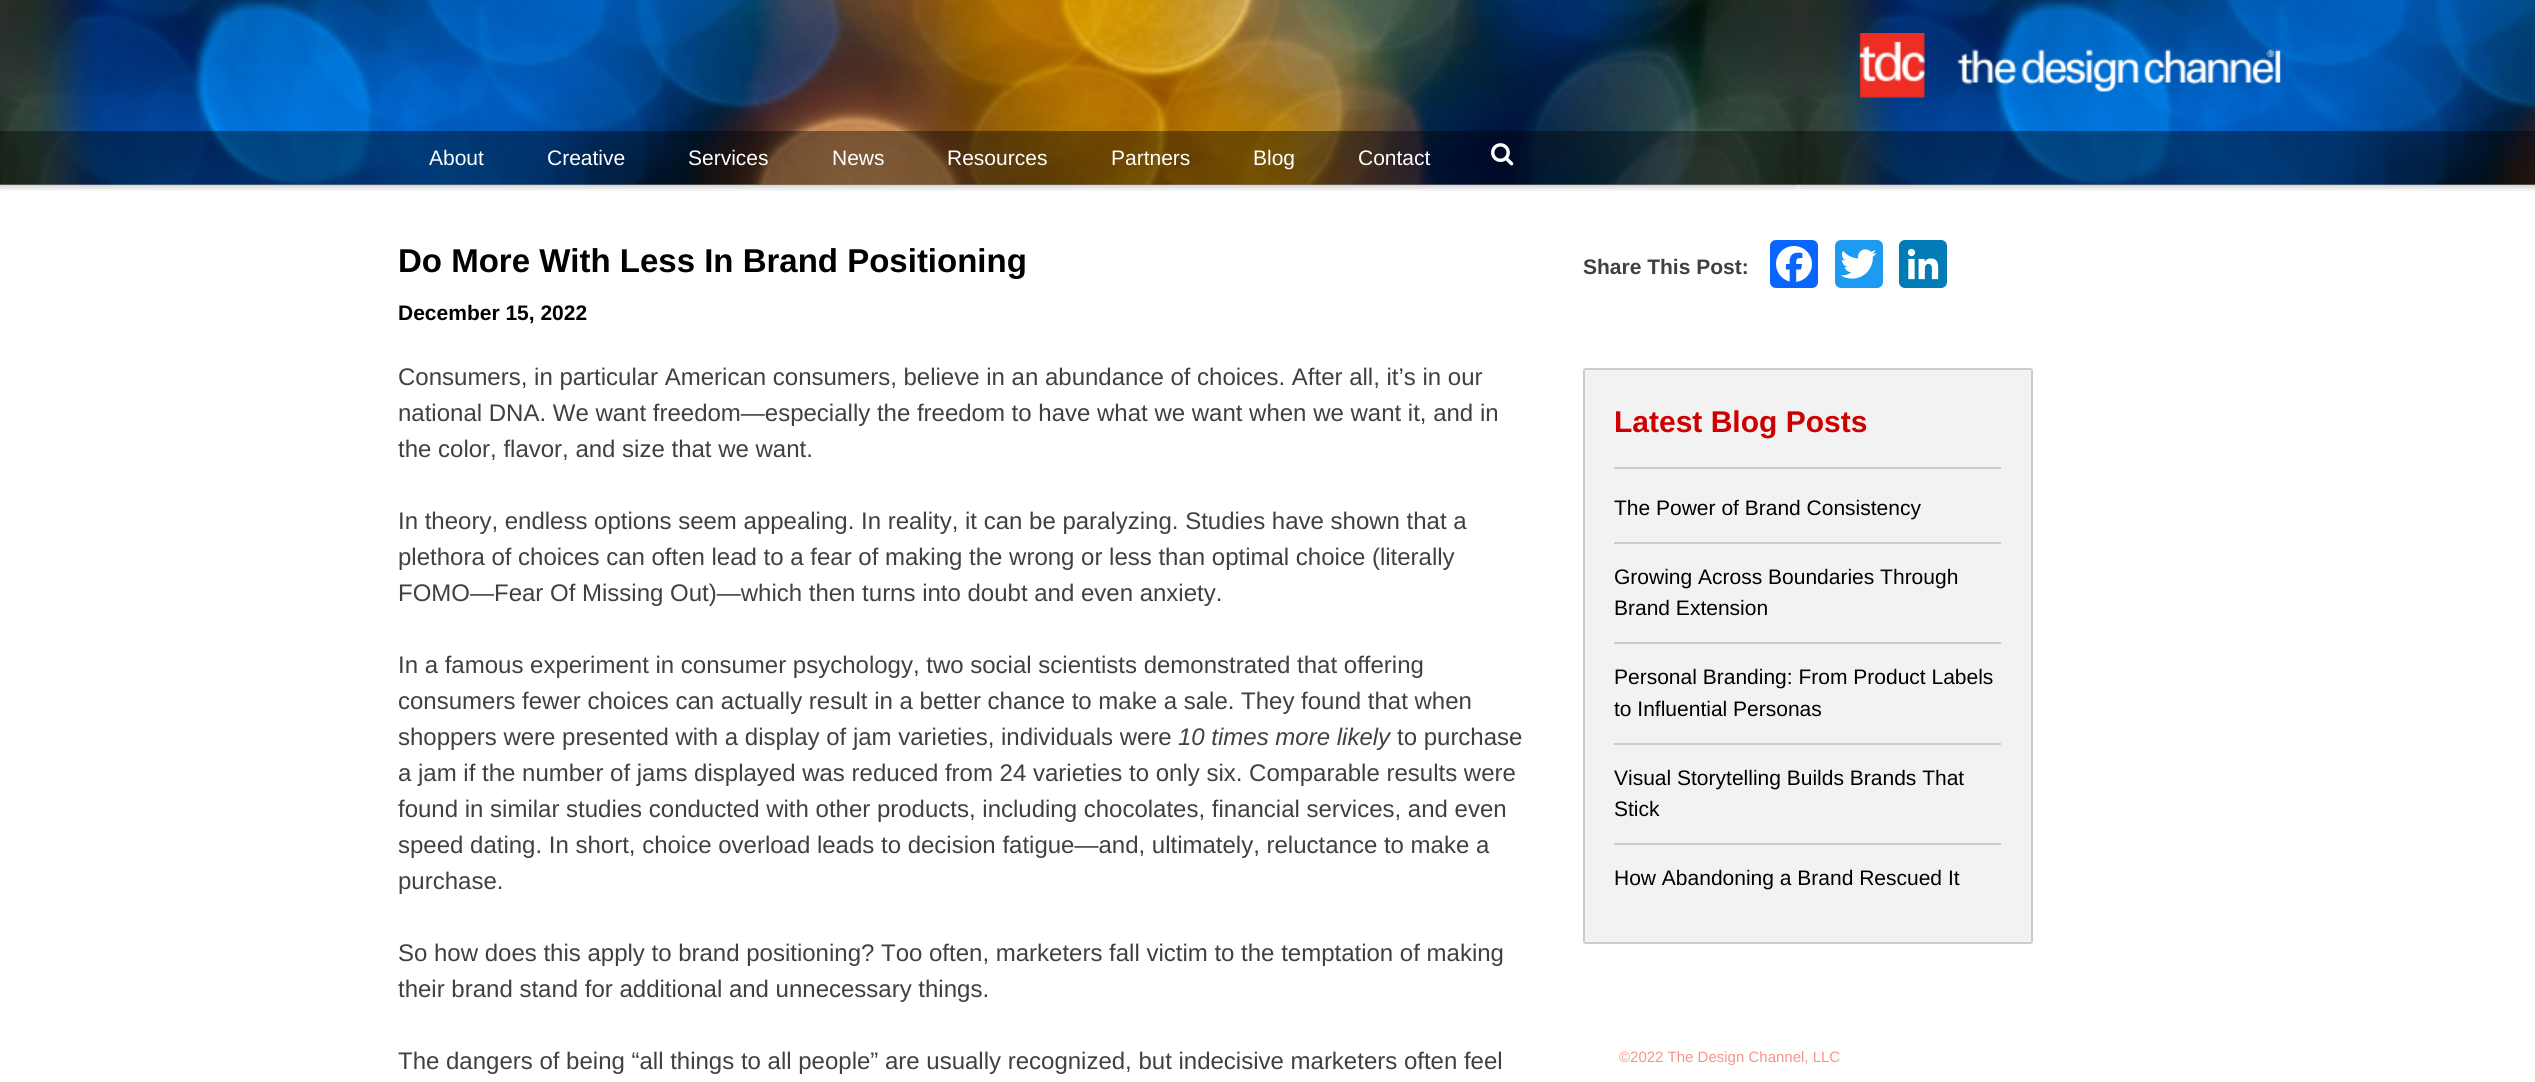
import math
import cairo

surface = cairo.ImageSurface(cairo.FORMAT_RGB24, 2535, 1082)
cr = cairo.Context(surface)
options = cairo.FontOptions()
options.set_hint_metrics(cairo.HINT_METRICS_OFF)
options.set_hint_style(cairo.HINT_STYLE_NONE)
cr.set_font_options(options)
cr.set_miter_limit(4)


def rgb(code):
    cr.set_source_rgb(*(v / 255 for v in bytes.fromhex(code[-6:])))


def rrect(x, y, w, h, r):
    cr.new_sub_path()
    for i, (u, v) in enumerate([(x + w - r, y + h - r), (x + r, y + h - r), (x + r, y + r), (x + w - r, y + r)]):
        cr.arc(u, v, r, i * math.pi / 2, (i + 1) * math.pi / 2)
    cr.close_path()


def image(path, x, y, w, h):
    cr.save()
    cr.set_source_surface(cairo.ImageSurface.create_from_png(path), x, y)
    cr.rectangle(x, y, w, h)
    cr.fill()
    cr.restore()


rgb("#ffffff")
cr.paint()
image("img/1.png", 0, 0, 2535, 191)
image("img/2.png", 1859, 33, 422, 65)
cr.set_source_rgba(0, 0, 0, 0.4)
cr.rectangle(0, 131, 2535, 54)
cr.fill()
image("img/3.png", 1491, 143, 23, 23)
rgb("#0866ff")
rrect(1770, 240, 48, 48, 6)
cr.fill()
image("img/4.png", 1776, 246, 36, 36)
rgb("#1d9bf0")
rrect(1835, 240, 48, 48, 6)
cr.fill()
image("img/5.png", 1840, 249, 37, 30)
rgb("#007bb5")
rrect(1899, 240, 48, 48, 6)
cr.fill()
image("img/6.png", 1907, 248, 32, 32)
rgb("#f2f2f2")
rrect(1584, 369, 448, 574, 2)
cr.fill_preserve()
rgb("#cccccc")
cr.stroke()
for x, y, w, h, color in [
    (1614, 467, 387, 2, "#cccccc"),
    (1614, 542, 387, 2, "#cccccc"),
    (1614, 642, 387, 2, "#cccccc"),
    (1614, 743, 387, 2, "#cccccc"),
    (1614, 843, 387, 2, "#cccccc"),
]:
    rgb(color)
    cr.rectangle(x, y, w, h)
    cr.fill()
cr.select_font_face("Liberation Sans")
cr.set_font_size(21)
rgb("#ffffff")
for x, y, s in [
    (429, 165, "About"),
    (547, 165, "Creative"),
    (688, 165, "Services"),
    (832, 165, "News"),
    (947, 165, "Resources"),
    (1111, 165, "Partners"),
    (1253, 165, "Blog"),
    (1358, 165, "Contact"),
]:
    cr.move_to(x, y)
    cr.show_text(s)
cr.select_font_face("Liberation Sans", cairo.FONT_SLANT_NORMAL, cairo.FONT_WEIGHT_BOLD)
cr.set_font_size(33)
rgb("#000000")
cr.move_to(398, 272)
cr.show_text("Do More With Less In Brand Positioning")
cr.set_font_size(21)
cr.move_to(398, 320)
cr.show_text("December 15, 2022")
cr.select_font_face("Liberation Sans")
cr.set_font_size(24)
rgb("#404040")
for x, y, s in [
    (398, 385, "Consumers, in particular American consumers, believe in an abundance of choices. After all, it’s in our"),
    (398, 421, "national DNA. We want freedom—especially the freedom to have what we want when we want it, and in"),
    (398, 457, "the color, flavor, and size that we want."),
    (398, 529, "In theory, endless options seem appealing. In reality, it can be paralyzing. Studies have shown that a"),
    (398, 565, "plethora of choices can often lead to a fear of making the wrong or less than optimal choice (literally"),
    (398, 601, "FOMO—Fear Of Missing Out)—which then turns into doubt and even anxiety."),
    (398, 673, "In a famous experiment in consumer psychology, two social scientists demonstrated that offering"),
    (398, 709, "consumers fewer choices can actually result in a better chance to make a sale. They found that when"),
    (398, 745, "shoppers were presented with a display of jam varieties, individuals were"),
]:
    cr.move_to(x, y)
    cr.show_text(s)
cr.select_font_face("Liberation Sans", cairo.FONT_SLANT_ITALIC)
cr.move_to(1178, 745)
cr.show_text("10 times more likely")
cr.select_font_face("Liberation Sans")
for x, y, s in [
    (1397, 745, "to purchase"),
    (398, 781, "a jam if the number of jams displayed was reduced from 24 varieties to only six. Comparable results were"),
    (398, 817, "found in similar studies conducted with other products, including chocolates, financial services, and even"),
    (398, 853, "speed dating. In short, choice overload leads to decision fatigue—and, ultimately, reluctance to make a"),
    (398, 889, "purchase."),
    (398, 961, "So how does this apply to brand positioning? Too often, marketers fall victim to the temptation of making"),
    (398, 997, "their brand stand for additional and unnecessary things."),
    (398, 1069, "The dangers of being “all things to all people” are usually recognized, but indecisive marketers often feel"),
]:
    cr.move_to(x, y)
    cr.show_text(s)
cr.select_font_face("Liberation Sans", cairo.FONT_SLANT_NORMAL, cairo.FONT_WEIGHT_BOLD)
cr.set_font_size(21)
cr.move_to(1583, 274)
cr.show_text("Share This Post:")
cr.set_font_size(30)
rgb("#cc0000")
cr.move_to(1614, 432)
cr.show_text("Latest Blog Posts")
cr.select_font_face("Liberation Sans")
cr.set_font_size(21)
rgb("#000000")
for x, y, s in [
    (1614, 515, "The Power of Brand Consistency"),
    (1614, 584, "Growing Across Boundaries Through"),
    (1614, 615, "Brand Extension"),
    (1614, 684, "Personal Branding: From Product Labels"),
    (1614, 716, "to Influential Personas"),
    (1614, 785, "Visual Storytelling Builds Brands That"),
    (1614, 816, "Stick"),
    (1614, 885, "How Abandoning a Brand Rescued It"),
]:
    cr.move_to(x, y)
    cr.show_text(s)
cr.set_font_size(15)
rgb("#f9928d")
cr.move_to(1619, 1062)
cr.show_text("©2022 The Design Channel, LLC")
surface.write_to_png("page.png")
